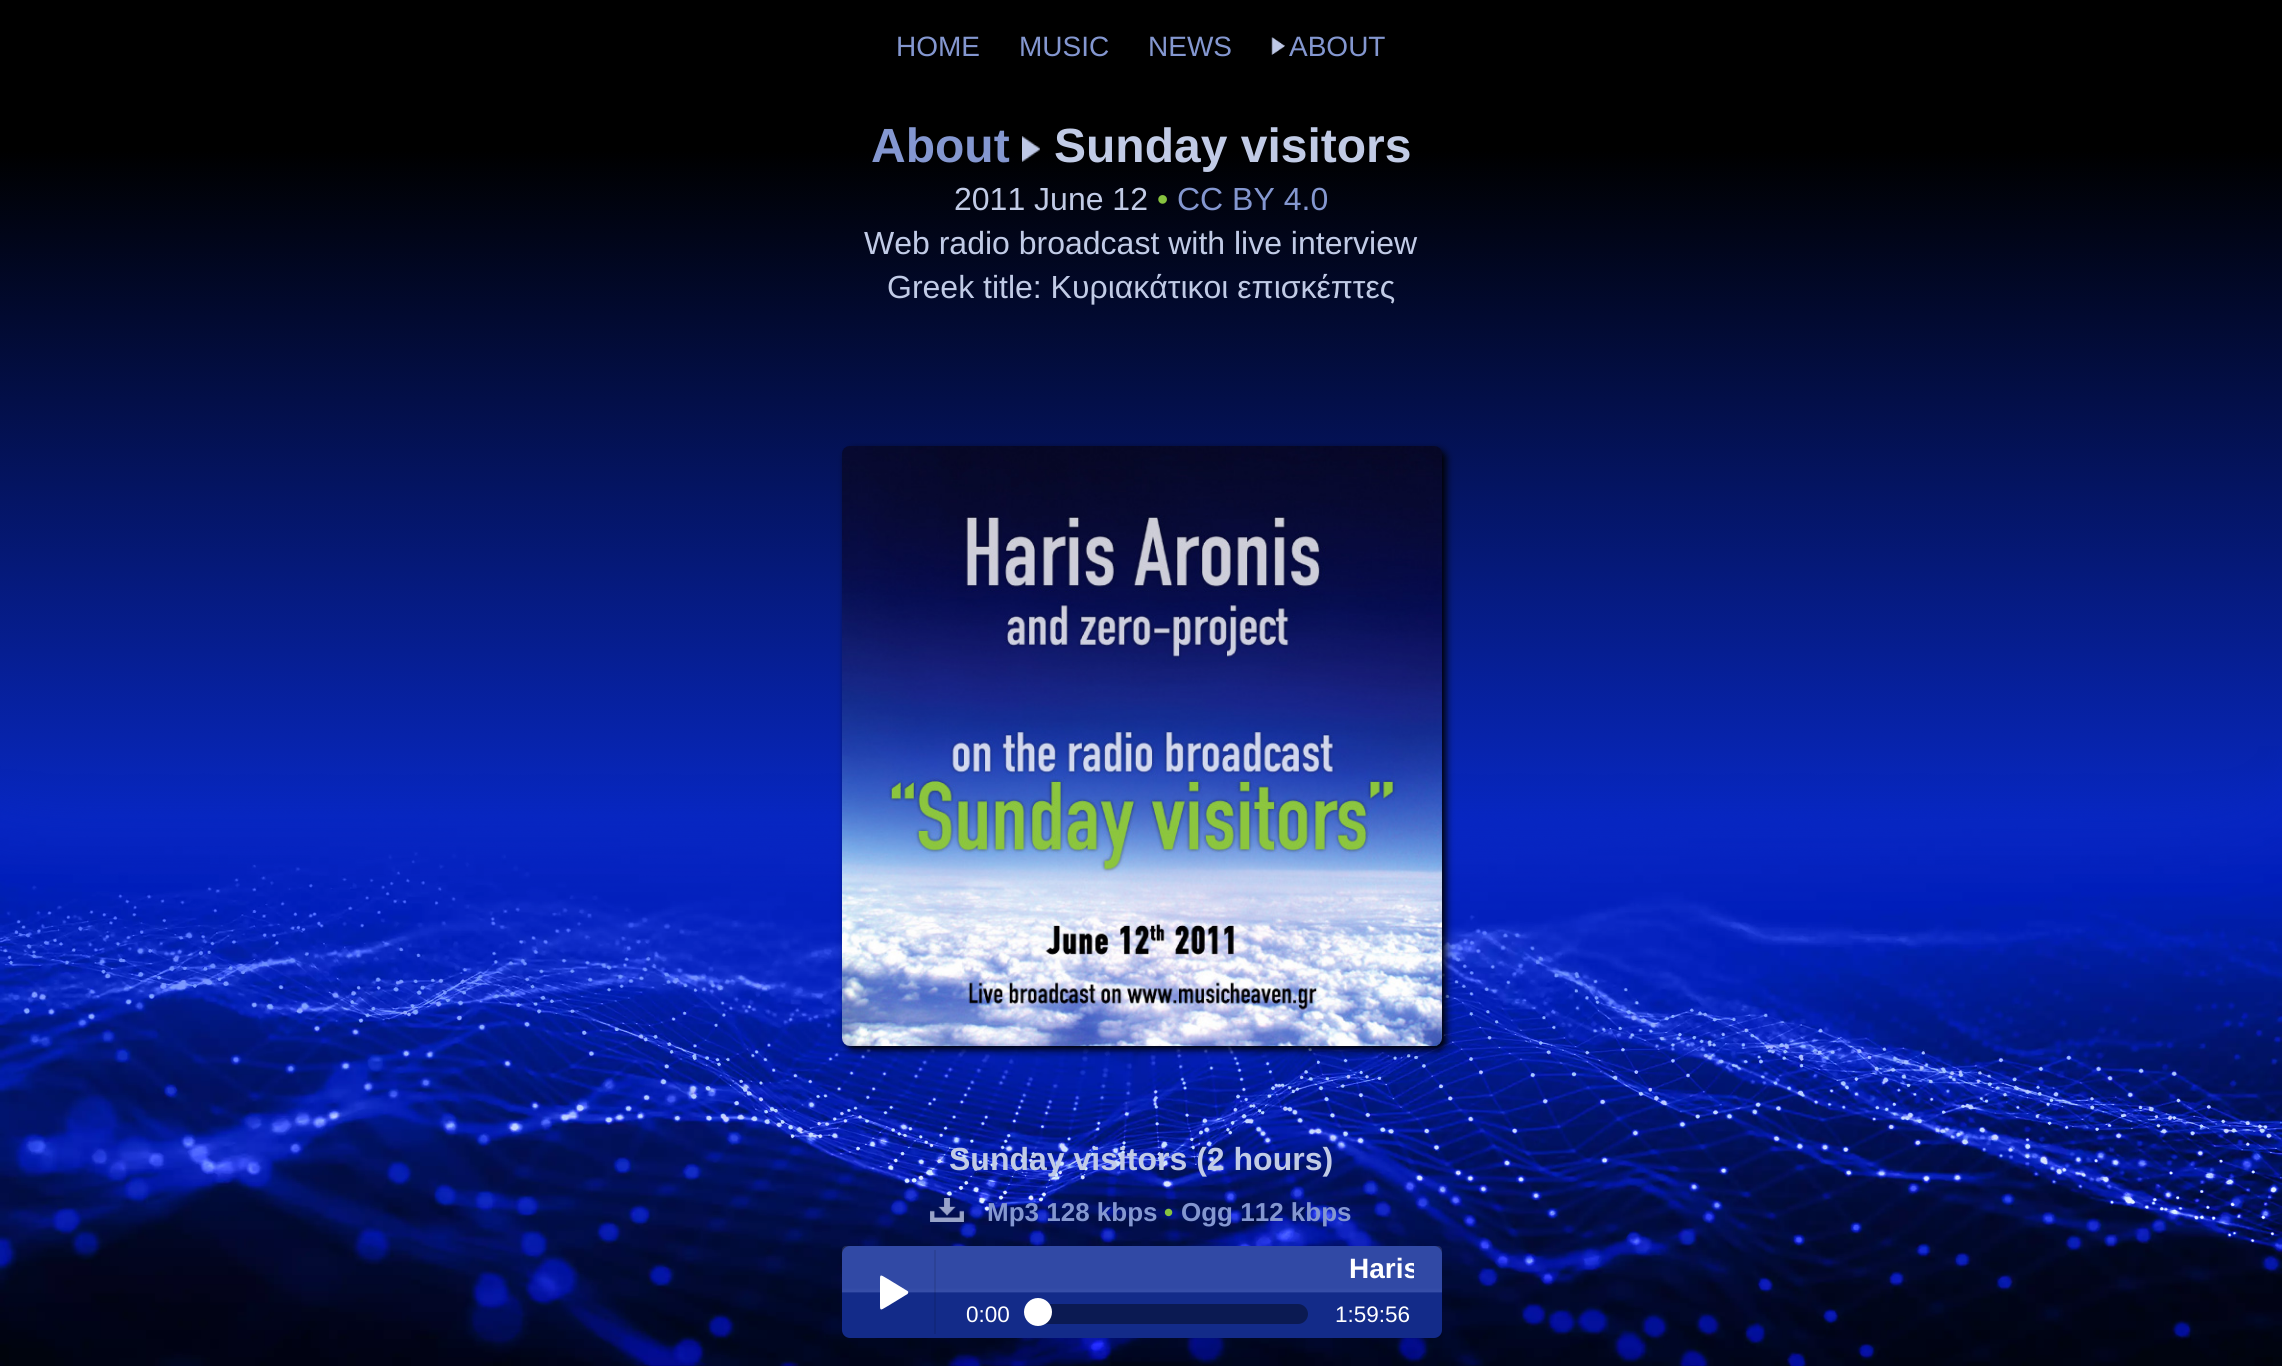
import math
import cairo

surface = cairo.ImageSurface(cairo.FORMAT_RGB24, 2282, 1366)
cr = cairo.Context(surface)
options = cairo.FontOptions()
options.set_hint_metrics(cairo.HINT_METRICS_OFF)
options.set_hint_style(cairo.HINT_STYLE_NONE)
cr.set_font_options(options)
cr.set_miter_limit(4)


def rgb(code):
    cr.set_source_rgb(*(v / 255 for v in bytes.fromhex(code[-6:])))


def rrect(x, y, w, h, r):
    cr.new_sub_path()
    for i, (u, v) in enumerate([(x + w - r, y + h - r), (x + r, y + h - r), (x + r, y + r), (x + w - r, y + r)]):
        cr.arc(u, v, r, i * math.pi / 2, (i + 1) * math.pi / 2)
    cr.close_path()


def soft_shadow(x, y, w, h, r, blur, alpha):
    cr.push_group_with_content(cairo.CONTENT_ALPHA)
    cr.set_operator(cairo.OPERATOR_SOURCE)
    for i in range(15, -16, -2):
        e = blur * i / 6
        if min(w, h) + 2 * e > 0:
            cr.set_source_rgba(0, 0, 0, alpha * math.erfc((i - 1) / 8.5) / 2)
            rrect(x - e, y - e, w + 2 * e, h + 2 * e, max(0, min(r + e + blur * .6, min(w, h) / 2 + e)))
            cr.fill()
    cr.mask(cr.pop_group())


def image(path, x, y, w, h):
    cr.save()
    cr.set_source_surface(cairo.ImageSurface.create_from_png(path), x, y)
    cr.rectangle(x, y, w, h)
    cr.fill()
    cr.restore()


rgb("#ffffff")
cr.paint()
image("img/1.png", 0, 0, 2282, 1366)
image("img/2.png", 1271, 37, 14, 18)
image("img/3.png", 1022, 136, 18, 26)
rgb("#000000")
soft_shadow(846, 450, 600, 600, 8, 4, 1)
image("img/4.png", 842, 446, 600, 600)
image("img/5.png", 930, 1198, 34, 24)
rgb("#153099")
rrect(842, 1246, 600, 92, 8)
cr.fill()
gradient = cairo.LinearGradient(1142, 1246, 1142, 1338)
gradient.add_color_stop_rgba(0.05, 1, 1, 1, 0.12)
gradient.add_color_stop_rgba(0.45, 1, 1, 1, 0.12)
gradient.add_color_stop_rgba(0.5, 1, 1, 1, 0.15)
gradient.add_color_stop_rgba(0.51, 0, 0, 0, 0.1)
gradient.add_color_stop_rgba(0.95, 0, 0, 0, 0.1)
cr.set_source(gradient)
rrect(842, 1246, 600, 92, 4)
cr.fill()
cr.set_source_rgba(0, 0, 0, 0.1)
cr.rectangle(934, 1250, 2, 84)
cr.fill()
rgb("#ffffff")
cr.new_path()
cr.move_to(907.5, 1291)
cr.line_to(887, 1278.5)
cr.curve_to(879.5, 1274, 880, 1274, 880, 1282.5)
cr.line_to(880, 1302)
cr.curve_to(880, 1311, 879.5, 1311, 887, 1306.5)
cr.line_to(907.5, 1294)
cr.curve_to(908.5, 1293, 908.5, 1291.5, 907.5, 1291)
cr.close_path()
cr.fill()
rgb("#0b1a52")
rrect(1038, 1304, 270, 20, 10)
cr.fill()
rgb("#ffffff")
cr.arc(1038, 1312, 14, 0, 2 * math.pi)
cr.fill()
cr.select_font_face("Liberation Sans")
cr.set_font_size(28)
rgb("#8497d0")
for x, y, s in [
    (896, 56, "HOME"),
    (1019, 56, "MUSIC"),
    (1148, 56, "NEWS"),
    (1289, 56, "ABOUT"),
]:
    cr.move_to(x, y)
    cr.show_text(s)
cr.select_font_face("Liberation Sans", cairo.FONT_SLANT_NORMAL, cairo.FONT_WEIGHT_BOLD)
cr.set_font_size(48)
cr.move_to(871, 162)
cr.show_text("About")
rgb("#c1cbe6")
cr.move_to(1054, 162)
cr.show_text("Sunday visitors")
cr.select_font_face("Liberation Sans")
cr.set_font_size(32)
cr.move_to(954, 210)
cr.show_text("2011 June 12")
rgb("#87c33f")
cr.move_to(1157, 210)
cr.show_text("•")
rgb("#8497d0")
cr.move_to(1177, 210)
cr.show_text("CC BY 4.0")
rgb("#c1cbe6")
cr.move_to(864, 254)
cr.show_text("Web radio broadcast with live interview")
cr.move_to(887, 298)
cr.show_text("Greek title: Κυριακάτικοι επισκέπτες")
cr.select_font_face("Liberation Sans", cairo.FONT_SLANT_NORMAL, cairo.FONT_WEIGHT_BOLD)
cr.move_to(949, 1170)
cr.show_text("Sunday visitors (2 hours)")
cr.set_font_size(26)
rgb("#8497d0")
cr.move_to(987, 1221)
cr.show_text("Mp3 128 kbps")
rgb("#87c33f")
cr.move_to(1164, 1221)
cr.show_text("•")
rgb("#8497d0")
cr.move_to(1181, 1221)
cr.show_text("Ogg 112 kbps")
cr.save()
cr.rectangle(962, 1256, 452, 28)
cr.clip()
cr.set_font_size(28)
rgb("#ffffff")
cr.move_to(1349, 1278)
cr.show_text("Haris")
cr.restore()
cr.select_font_face("Liberation Sans")
cr.set_font_size(22.5)
rgb("#ffffff")
cr.move_to(966, 1322)
cr.show_text("0:00")
cr.move_to(1335, 1322)
cr.show_text("1:59:56")
surface.write_to_png("page.png")
